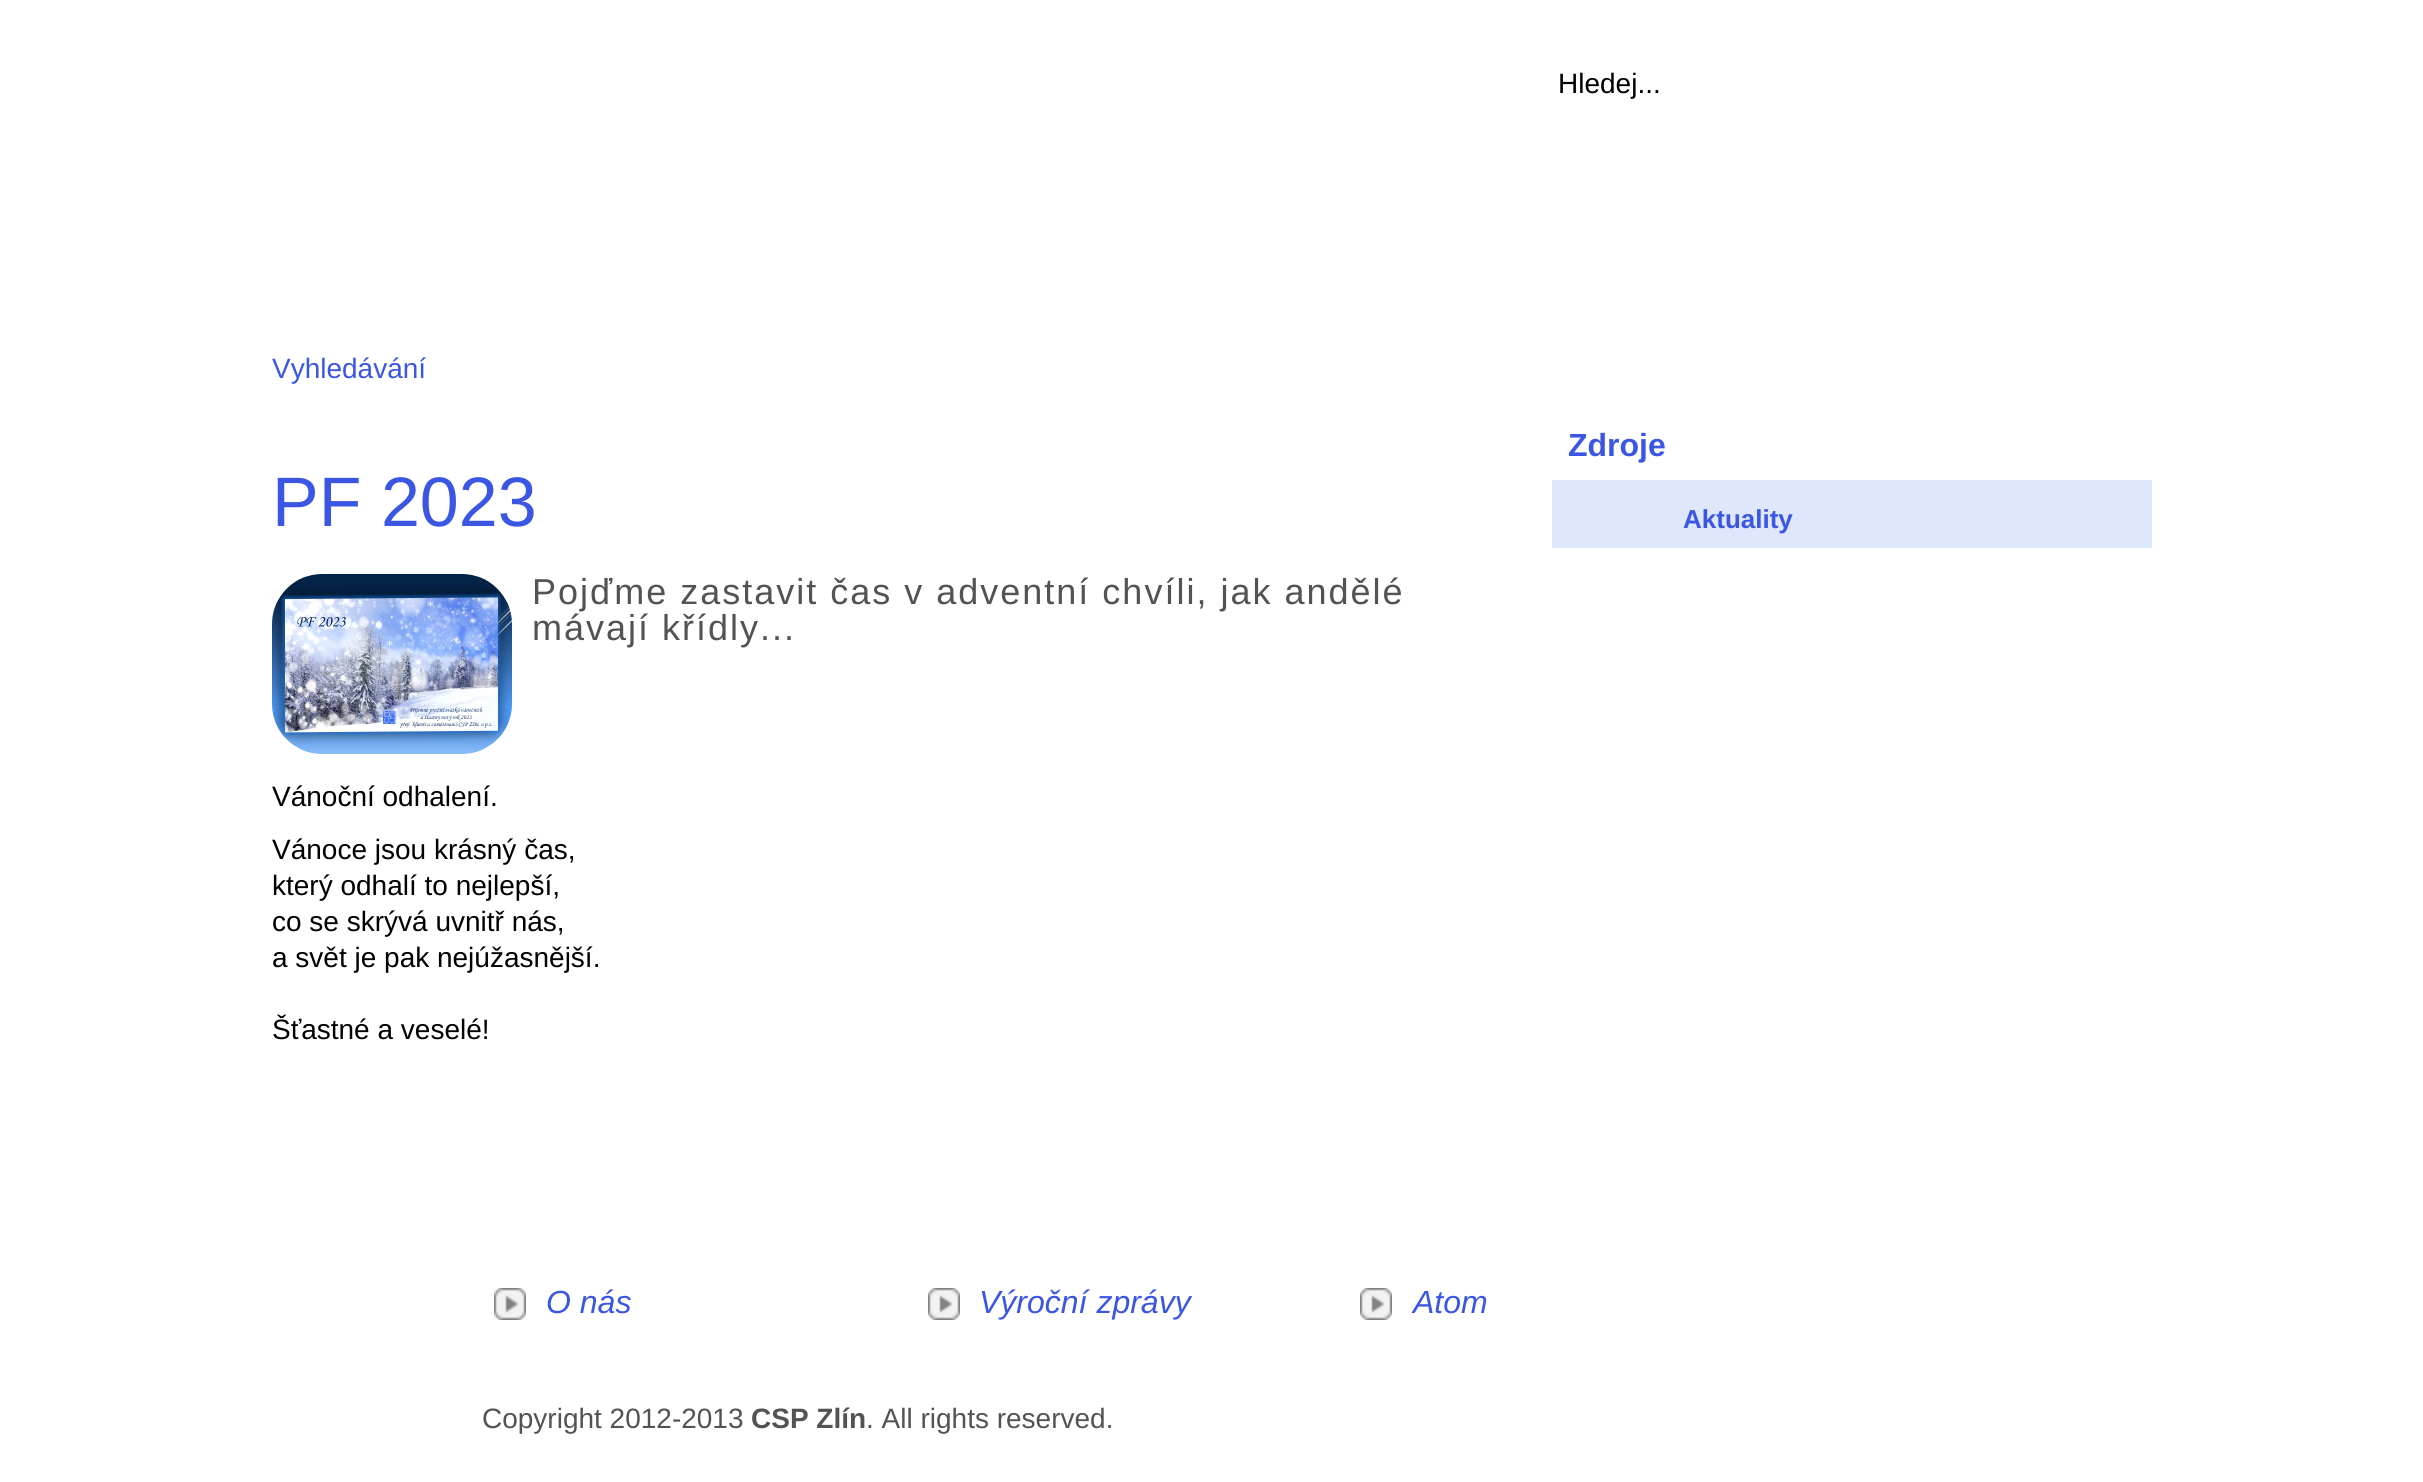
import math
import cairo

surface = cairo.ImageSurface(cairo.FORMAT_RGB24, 2423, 1482)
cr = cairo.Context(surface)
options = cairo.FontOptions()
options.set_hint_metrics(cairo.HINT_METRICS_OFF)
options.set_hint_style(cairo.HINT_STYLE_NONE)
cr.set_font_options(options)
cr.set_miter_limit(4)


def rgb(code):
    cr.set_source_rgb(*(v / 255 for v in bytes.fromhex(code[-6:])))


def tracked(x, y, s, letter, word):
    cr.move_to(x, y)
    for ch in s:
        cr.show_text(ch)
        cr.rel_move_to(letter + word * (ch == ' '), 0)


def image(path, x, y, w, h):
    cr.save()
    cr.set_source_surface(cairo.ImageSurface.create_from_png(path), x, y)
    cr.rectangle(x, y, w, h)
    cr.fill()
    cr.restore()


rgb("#ffffff")
cr.paint()
image("img/1.png", 272, 574, 240, 180)
rgb("#dee7fb")
cr.rectangle(1552, 480, 600, 68)
cr.fill()
image("img/2.png", 494, 1288, 32, 32)
image("img/2.png", 928, 1288, 32, 32)
image("img/2.png", 1360, 1288, 32, 32)
cr.select_font_face("Liberation Sans")
cr.set_font_size(28)
rgb("#000000")
cr.move_to(1558, 93)
cr.show_text("Hledej...")
rgb("#3a56e3")
cr.move_to(272, 378)
cr.show_text("Vyhledávání")
cr.set_font_size(70)
cr.move_to(272, 526)
cr.show_text("PF 2023")
cr.set_font_size(36)
rgb("#535353")
tracked(532, 604, "Pojďme zastavit čas v adventní chvíli, jak andělé", 2, 0)
tracked(532, 640, "mávají křídly...", 2, 0)
cr.set_font_size(28)
rgb("#000000")
for x, y, s in [
    (272, 806, "Vánoční odhalení."),
    (272, 859, "Vánoce jsou krásný čas,"),
    (272, 895, "který odhalí to nejlepší,"),
    (272, 931, "co se skrývá uvnitř nás,"),
    (272, 967, "a svět je pak nejúžasnější."),
    (272, 1039, "Šťastné a veselé!"),
]:
    cr.move_to(x, y)
    cr.show_text(s)
cr.select_font_face("Liberation Sans", cairo.FONT_SLANT_NORMAL, cairo.FONT_WEIGHT_BOLD)
cr.set_font_size(32)
rgb("#3a56e3")
cr.move_to(1568, 456)
cr.show_text("Zdroje")
cr.set_font_size(26)
cr.move_to(1683, 528)
cr.show_text("Aktuality")
cr.select_font_face("Liberation Sans", cairo.FONT_SLANT_ITALIC)
cr.set_font_size(32)
for x, y, s in [
    (546, 1313, "O nás"),
    (979, 1313, "Výroční zprávy"),
    (1413, 1313, "Atom"),
]:
    cr.move_to(x, y)
    cr.show_text(s)
cr.select_font_face("Liberation Sans")
cr.set_font_size(28)
rgb("#535353")
cr.move_to(482, 1428)
cr.show_text("Copyright 2012-2013")
cr.select_font_face("Liberation Sans", cairo.FONT_SLANT_NORMAL, cairo.FONT_WEIGHT_BOLD)
cr.move_to(751, 1428)
cr.show_text("CSP Zlín")
cr.select_font_face("Liberation Sans")
cr.move_to(866, 1428)
cr.show_text(". All rights reserved.")
surface.write_to_png("page.png")
